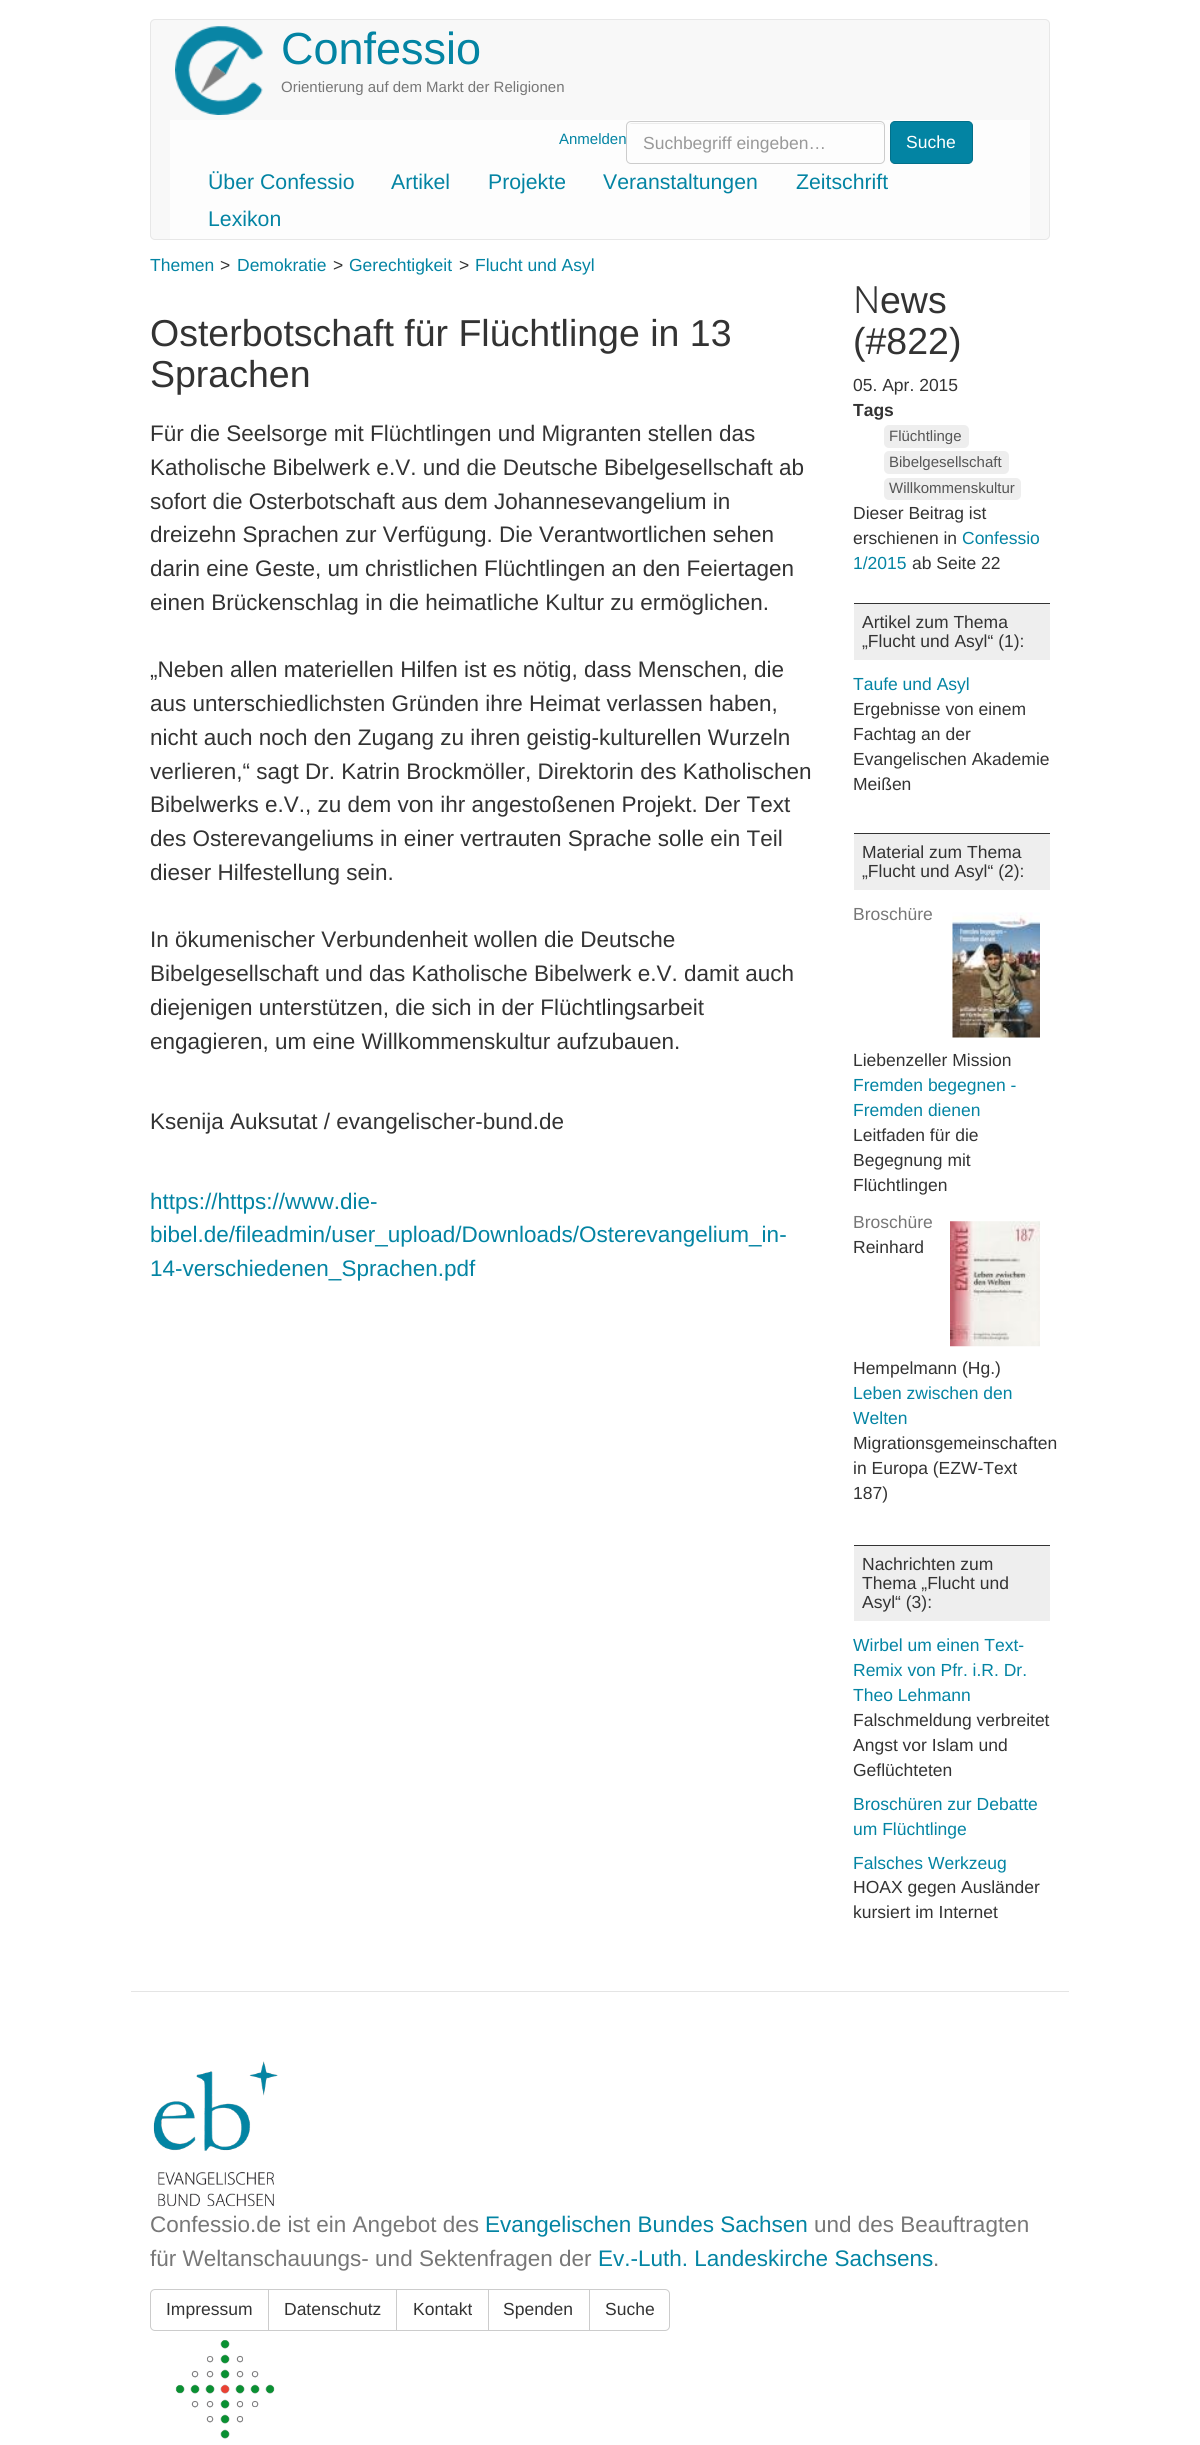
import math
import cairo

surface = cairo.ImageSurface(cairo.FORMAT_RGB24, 1200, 2445)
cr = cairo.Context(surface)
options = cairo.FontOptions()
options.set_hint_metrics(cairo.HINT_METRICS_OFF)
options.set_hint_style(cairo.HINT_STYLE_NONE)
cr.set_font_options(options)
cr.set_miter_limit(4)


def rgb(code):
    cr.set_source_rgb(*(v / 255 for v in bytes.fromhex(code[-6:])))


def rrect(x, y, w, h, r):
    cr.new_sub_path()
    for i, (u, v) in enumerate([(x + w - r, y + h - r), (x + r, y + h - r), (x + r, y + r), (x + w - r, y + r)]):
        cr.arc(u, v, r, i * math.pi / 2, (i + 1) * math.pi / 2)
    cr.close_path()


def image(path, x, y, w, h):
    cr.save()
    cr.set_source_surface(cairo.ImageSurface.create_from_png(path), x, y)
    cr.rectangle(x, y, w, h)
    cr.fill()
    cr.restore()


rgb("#ffffff")
cr.paint()
rgb("#f8f8f8")
rrect(150.5, 19.5, 899, 220, 4.5)
cr.fill_preserve()
rgb("#e7e7e7")
cr.set_line_width(1)
cr.stroke()
image("img/1.png", 175, 26, 88, 89)
rgb("#fdfdfd")
cr.rectangle(170, 120, 860, 119)
cr.fill()
rgb("#ececec")
cr.new_path()
cr.move_to(631, 124)
cr.line_to(880, 124)
cr.curve_to(882, 124, 884, 125, 884, 128)
cr.line_to(884, 127)
cr.curve_to(884, 125, 882, 123, 880, 123)
cr.line_to(632, 123)
cr.curve_to(630, 123, 628, 125, 628, 127)
cr.line_to(628, 128)
cr.curve_to(628, 125, 629, 124, 631, 124)
cr.close_path()
cr.fill()
rrect(626.5, 121.5, 258, 42, 4.5)
rgb("#cccccc")
cr.stroke()
rgb("#0384a3")
rrect(890.5, 121.5, 82, 42, 4.5)
cr.fill_preserve()
rgb("#03708a")
cr.stroke()
rgb("#eeeeee")
rrect(884, 425, 85, 23, 5)
cr.fill()
rrect(884, 451, 125, 23, 5)
cr.fill()
rrect(884, 478, 137, 22, 5)
cr.fill()
for x, y, w, h, color in [
    (854, 604, 196, 56, "#eeeeee"),
    (854, 603, 196, 1, "#333333"),
    (854, 834, 196, 56, "#eeeeee"),
    (854, 833, 196, 1, "#333333"),
]:
    rgb(color)
    cr.rectangle(x, y, w, h)
    cr.fill()
image("img/2.png", 952, 912, 88, 126)
image("img/3.png", 950, 1221, 90, 126)
for x, y, w, h, color in [
    (854, 1546, 196, 75, "#eeeeee"),
    (854, 1545, 196, 1, "#333333"),
    (131, 1991, 938, 1, "#e5e5e5"),
]:
    rgb(color)
    cr.rectangle(x, y, w, h)
    cr.fill()
image("img/4.png", 153, 2061, 125, 146)
cr.new_path()
cr.move_to(155, 2289.5)
cr.line_to(268.5, 2289.5)
cr.line_to(268.5, 2330.5)
cr.line_to(155, 2330.5)
cr.curve_to(152.5, 2330.5, 150.5, 2328.5, 150.5, 2326)
cr.line_to(150.5, 2294)
cr.curve_to(150.5, 2291.5, 152.5, 2289.5, 155, 2289.5)
cr.close_path()
rgb("#cccccc")
cr.stroke()
cr.rectangle(268.5, 2289.5, 129, 41)
cr.stroke()
rgb("#ffffff")
cr.rectangle(397, 2290, 1, 40)
cr.fill()
cr.rectangle(396.5, 2289.5, 92, 41)
rgb("#cccccc")
cr.stroke()
cr.rectangle(488.5, 2289.5, 101, 41)
cr.stroke()
rgb("#ffffff")
cr.new_path()
cr.move_to(589.5, 2289.5)
cr.line_to(665, 2289.5)
cr.curve_to(667.5, 2289.5, 669.5, 2291.5, 669.5, 2294)
cr.line_to(669.5, 2326)
cr.curve_to(669.5, 2328.5, 667.5, 2330.5, 665, 2330.5)
cr.line_to(589.5, 2330.5)
cr.close_path()
cr.fill_preserve()
rgb("#cccccc")
cr.stroke()
image("img/5.png", 175, 2340, 100, 99)
cr.select_font_face("Liberation Sans")
cr.set_font_size(45)
rgb("#0384a3")
cr.move_to(281, 64)
cr.show_text("Confessio")
cr.set_font_size(15)
rgb("#777777")
cr.move_to(281, 92)
cr.show_text("Orientierung auf dem Markt der Religionen")
cr.set_font_size(17.5)
rgb("#999999")
cr.move_to(643, 149)
cr.show_text("Suchbegriff eingeben…")
rgb("#ffffff")
cr.move_to(906, 148)
cr.show_text("Suche")
cr.set_font_size(15)
rgb("#0384a3")
cr.move_to(559, 144)
cr.show_text("Anmelden")
cr.set_font_size(21.25)
for x, y, s in [
    (208, 189, "Über Confessio"),
    (391, 189, "Artikel"),
    (488, 189, "Projekte"),
    (603, 189, "Veranstaltungen"),
    (796, 189, "Zeitschrift"),
    (208, 226, "Lexikon"),
]:
    cr.move_to(x, y)
    cr.show_text(s)
cr.set_font_size(17.5)
cr.move_to(150, 271)
cr.show_text("Themen")
rgb("#333333")
cr.move_to(220, 271)
cr.show_text(">")
rgb("#0384a3")
cr.move_to(237, 271)
cr.show_text("Demokratie")
rgb("#333333")
cr.move_to(333, 271)
cr.show_text(">")
rgb("#0384a3")
cr.move_to(349, 271)
cr.show_text("Gerechtigkeit")
rgb("#333333")
cr.move_to(459, 271)
cr.show_text(">")
rgb("#0384a3")
cr.move_to(475, 271)
cr.show_text("Flucht und Asyl")
cr.set_font_size(37.5)
rgb("#333333")
cr.move_to(150, 346)
cr.show_text("Osterbotschaft für Flüchtlinge in 13")
cr.move_to(150, 387)
cr.show_text("Sprachen")
cr.set_font_size(22.5)
for x, y, s in [
    (150, 441, "Für die Seelsorge mit Flüchtlingen und Migranten stellen das"),
    (150, 475, "Katholische Bibelwerk e.V. und die Deutsche Bibelgesellschaft ab"),
    (150, 509, "sofort die Osterbotschaft aus dem Johannesevangelium in"),
    (150, 542, "dreizehn Sprachen zur Verfügung. Die Verantwortlichen sehen"),
    (150, 576, "darin eine Geste, um christlichen Flüchtlingen an den Feiertagen"),
    (150, 610, "einen Brückenschlag in die heimatliche Kultur zu ermöglichen."),
    (150, 677, "„Neben allen materiellen Hilfen ist es nötig, dass Menschen, die"),
    (150, 711, "aus unterschiedlichsten Gründen ihre Heimat verlassen haben,"),
    (150, 745, "nicht auch noch den Zugang zu ihren geistig-kulturellen Wurzeln"),
    (150, 779, "verlieren,“ sagt Dr. Katrin Brockmöller, Direktorin des Katholischen"),
    (150, 812, "Bibelwerks e.V., zu dem von ihr angestoßenen Projekt. Der Text"),
    (150, 846, "des Osterevangeliums in einer vertrauten Sprache solle ein Teil"),
    (150, 880, "dieser Hilfestellung sein."),
    (150, 947, "In ökumenischer Verbundenheit wollen die Deutsche"),
    (150, 981, "Bibelgesellschaft und das Katholische Bibelwerk e.V. damit auch"),
    (150, 1015, "diejenigen unterstützen, die sich in der Flüchtlingsarbeit"),
    (150, 1049, "engagieren, um eine Willkommenskultur aufzubauen."),
    (150, 1129, "Ksenija Auksutat / evangelischer-bund.de"),
]:
    cr.move_to(x, y)
    cr.show_text(s)
rgb("#0384a3")
for x, y, s in [
    (150, 1209, "https://https://www.die-"),
    (150, 1242, "bibel.de/fileadmin/user_upload/Downloads/Osterevangelium_in-"),
    (150, 1276, "14-verschiedenen_Sprachen.pdf"),
]:
    cr.move_to(x, y)
    cr.show_text(s)
cr.select_font_face("Noto Sans Light")
cr.set_font_size(37.5)
rgb("#333333")
cr.move_to(853, 313)
cr.show_text("N")
cr.select_font_face("Liberation Sans")
cr.move_to(880, 313)
cr.show_text("ews")
cr.move_to(853, 354)
cr.show_text("(#822)")
cr.set_font_size(17.5)
cr.move_to(853, 391)
cr.show_text("05. Apr. 2015")
cr.select_font_face("Liberation Sans", cairo.FONT_SLANT_NORMAL, cairo.FONT_WEIGHT_BOLD)
cr.move_to(853, 416)
cr.show_text("Tags")
cr.select_font_face("Liberation Sans")
cr.set_font_size(15)
rgb("#555555")
for x, y, s in [
    (889, 441, "Flüchtlinge"),
    (889, 467, "Bibelgesellschaft"),
    (889, 493, "Willkommenskultur"),
]:
    cr.move_to(x, y)
    cr.show_text(s)
cr.set_font_size(17.5)
rgb("#333333")
cr.move_to(853, 519)
cr.show_text("Dieser Beitrag ist")
cr.move_to(853, 544)
cr.show_text("erschienen in")
rgb("#0384a3")
cr.move_to(962, 544)
cr.show_text("Confessio")
cr.move_to(853, 569)
cr.show_text("1/2015")
rgb("#333333")
for x, y, s in [
    (912, 569, "ab Seite 22"),
    (862, 628, "Artikel zum Thema"),
    (862, 647, "„Flucht und Asyl“ (1):"),
]:
    cr.move_to(x, y)
    cr.show_text(s)
rgb("#0384a3")
cr.move_to(853, 690)
cr.show_text("Taufe und Asyl")
rgb("#333333")
for x, y, s in [
    (853, 715, "Ergebnisse von einem"),
    (853, 740, "Fachtag an der"),
    (853, 765, "Evangelischen Akademie"),
    (853, 790, "Meißen"),
    (862, 858, "Material zum Thema"),
    (862, 877, "„Flucht und Asyl“ (2):"),
]:
    cr.move_to(x, y)
    cr.show_text(s)
rgb("#777777")
cr.move_to(853, 920)
cr.show_text("Broschüre")
rgb("#333333")
cr.move_to(853, 1066)
cr.show_text("Liebenzeller Mission")
rgb("#0384a3")
cr.move_to(853, 1091)
cr.show_text("Fremden begegnen -")
cr.move_to(853, 1116)
cr.show_text("Fremden dienen")
rgb("#333333")
for x, y, s in [
    (853, 1141, "Leitfaden für die"),
    (853, 1166, "Begegnung mit"),
    (853, 1191, "Flüchtlingen"),
]:
    cr.move_to(x, y)
    cr.show_text(s)
rgb("#777777")
cr.move_to(853, 1228)
cr.show_text("Broschüre")
rgb("#333333")
cr.move_to(853, 1253)
cr.show_text("Reinhard")
cr.move_to(853, 1374)
cr.show_text("Hempelmann (Hg.)")
rgb("#0384a3")
cr.move_to(853, 1399)
cr.show_text("Leben zwischen den")
cr.move_to(853, 1424)
cr.show_text("Welten")
rgb("#333333")
for x, y, s in [
    (853, 1449, "Migrationsgemeinschaften"),
    (853, 1474, "in Europa (EZW-Text"),
    (853, 1499, "187)"),
    (862, 1570, "Nachrichten zum"),
    (862, 1589, "Thema „Flucht und"),
    (862, 1608, "Asyl“ (3):"),
]:
    cr.move_to(x, y)
    cr.show_text(s)
rgb("#0384a3")
for x, y, s in [
    (853, 1651, "Wirbel um einen Text-"),
    (853, 1676, "Remix von Pfr. i.R. Dr."),
    (853, 1701, "Theo Lehmann"),
]:
    cr.move_to(x, y)
    cr.show_text(s)
rgb("#333333")
for x, y, s in [
    (853, 1726, "Falschmeldung verbreitet"),
    (853, 1751, "Angst vor Islam und"),
    (853, 1776, "Geflüchteten"),
]:
    cr.move_to(x, y)
    cr.show_text(s)
rgb("#0384a3")
for x, y, s in [
    (853, 1810, "Broschüren zur Debatte"),
    (853, 1835, "um Flüchtlinge"),
    (853, 1869, "Falsches Werkzeug"),
]:
    cr.move_to(x, y)
    cr.show_text(s)
rgb("#333333")
cr.move_to(853, 1893)
cr.show_text("HOAX gegen Ausländer")
cr.move_to(853, 1918)
cr.show_text("kursiert im Internet")
cr.set_font_size(22.5)
rgb("#777777")
cr.move_to(150, 2232)
cr.show_text("Confessio.de ist ein Angebot des")
rgb("#0384a3")
cr.move_to(485, 2232)
cr.show_text("Evangelischen Bundes Sachsen")
rgb("#777777")
cr.move_to(814, 2232)
cr.show_text("und des Beauftragten")
cr.move_to(150, 2266)
cr.show_text("für Weltanschauungs- und Sektenfragen der")
rgb("#0384a3")
cr.move_to(598, 2266)
cr.show_text("Ev.-Luth. Landeskirche Sachsens")
rgb("#777777")
cr.move_to(933, 2266)
cr.show_text(".")
cr.set_font_size(17.5)
rgb("#333333")
for x, y, s in [
    (166, 2315, "Impressum"),
    (284, 2315, "Datenschutz"),
    (413, 2315, "Kontakt"),
    (503, 2315, "Spenden"),
    (605, 2315, "Suche"),
]:
    cr.move_to(x, y)
    cr.show_text(s)
surface.write_to_png("page.png")
